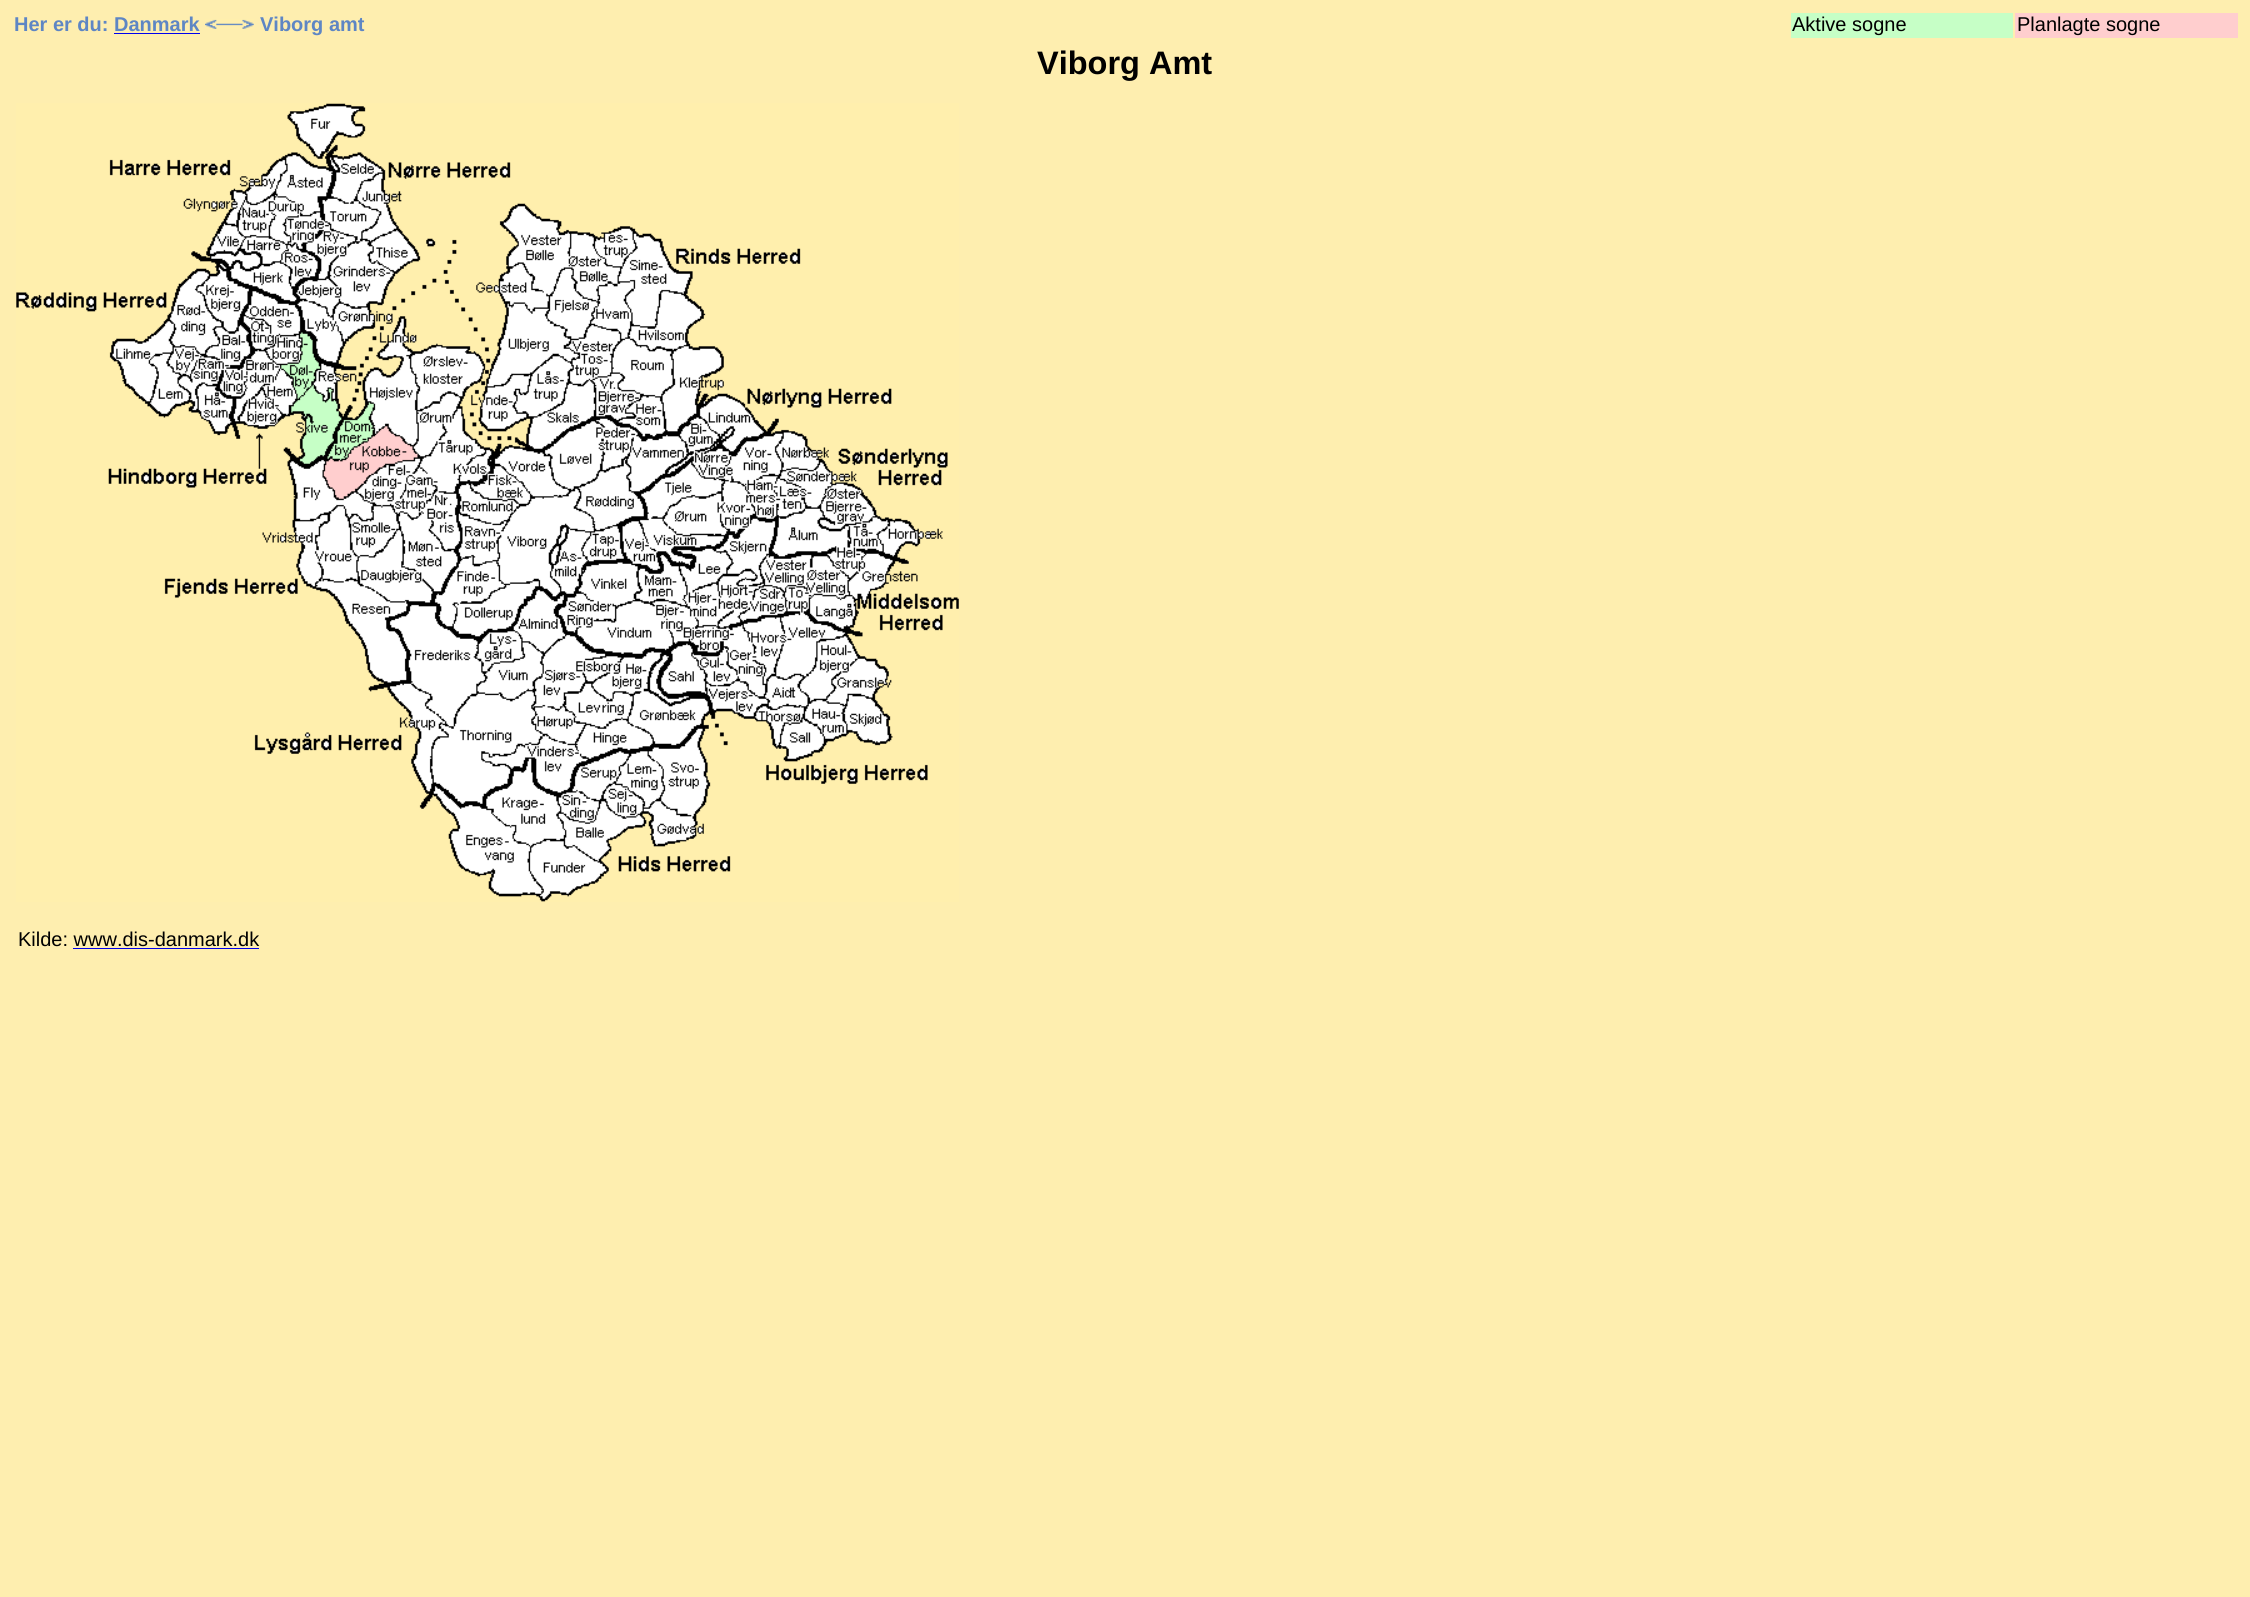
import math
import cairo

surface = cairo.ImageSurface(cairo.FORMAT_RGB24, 2250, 1597)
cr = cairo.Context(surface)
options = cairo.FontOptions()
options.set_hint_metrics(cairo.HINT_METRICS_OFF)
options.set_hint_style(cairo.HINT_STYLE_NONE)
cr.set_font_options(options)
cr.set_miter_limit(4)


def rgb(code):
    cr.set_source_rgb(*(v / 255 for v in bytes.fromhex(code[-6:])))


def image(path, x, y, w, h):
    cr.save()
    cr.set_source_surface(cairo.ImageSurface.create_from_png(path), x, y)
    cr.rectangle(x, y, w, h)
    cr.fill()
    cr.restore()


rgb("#feeeaf")
cr.paint()
image("img/1.png", 205, 19, 49, 10)
for x, y, w, h, color in [
    (114, 33, 86, 1, "#0000ee"),
    (1791, 13, 222, 25, "#c6ffc6"),
    (2015, 13, 223, 25, "#ffcece"),
]:
    rgb(color)
    cr.rectangle(x, y, w, h)
    cr.fill()
image("img/2.png", 16, 103, 943, 799)
rgb("#0000ee")
cr.rectangle(73, 948, 186, 1)
cr.fill()
cr.select_font_face("Liberation Sans", cairo.FONT_SLANT_NORMAL, cairo.FONT_WEIGHT_BOLD)
cr.set_font_size(20)
rgb("#5e86c4")
cr.move_to(14, 31)
cr.show_text("Her er du: Danmark")
cr.move_to(260, 31)
cr.show_text("Viborg amt")
cr.select_font_face("Liberation Sans")
rgb("#000000")
cr.move_to(1792, 31)
cr.show_text("Aktive sogne")
cr.move_to(2017, 31)
cr.show_text("Planlagte sogne")
cr.select_font_face("Liberation Sans", cairo.FONT_SLANT_NORMAL, cairo.FONT_WEIGHT_BOLD)
cr.set_font_size(32.5)
cr.move_to(1037, 74)
cr.show_text("Viborg Amt")
cr.select_font_face("Liberation Sans")
cr.set_font_size(20)
cr.move_to(18, 946)
cr.show_text("Kilde: www.dis-danmark.dk")
surface.write_to_png("page.png")
